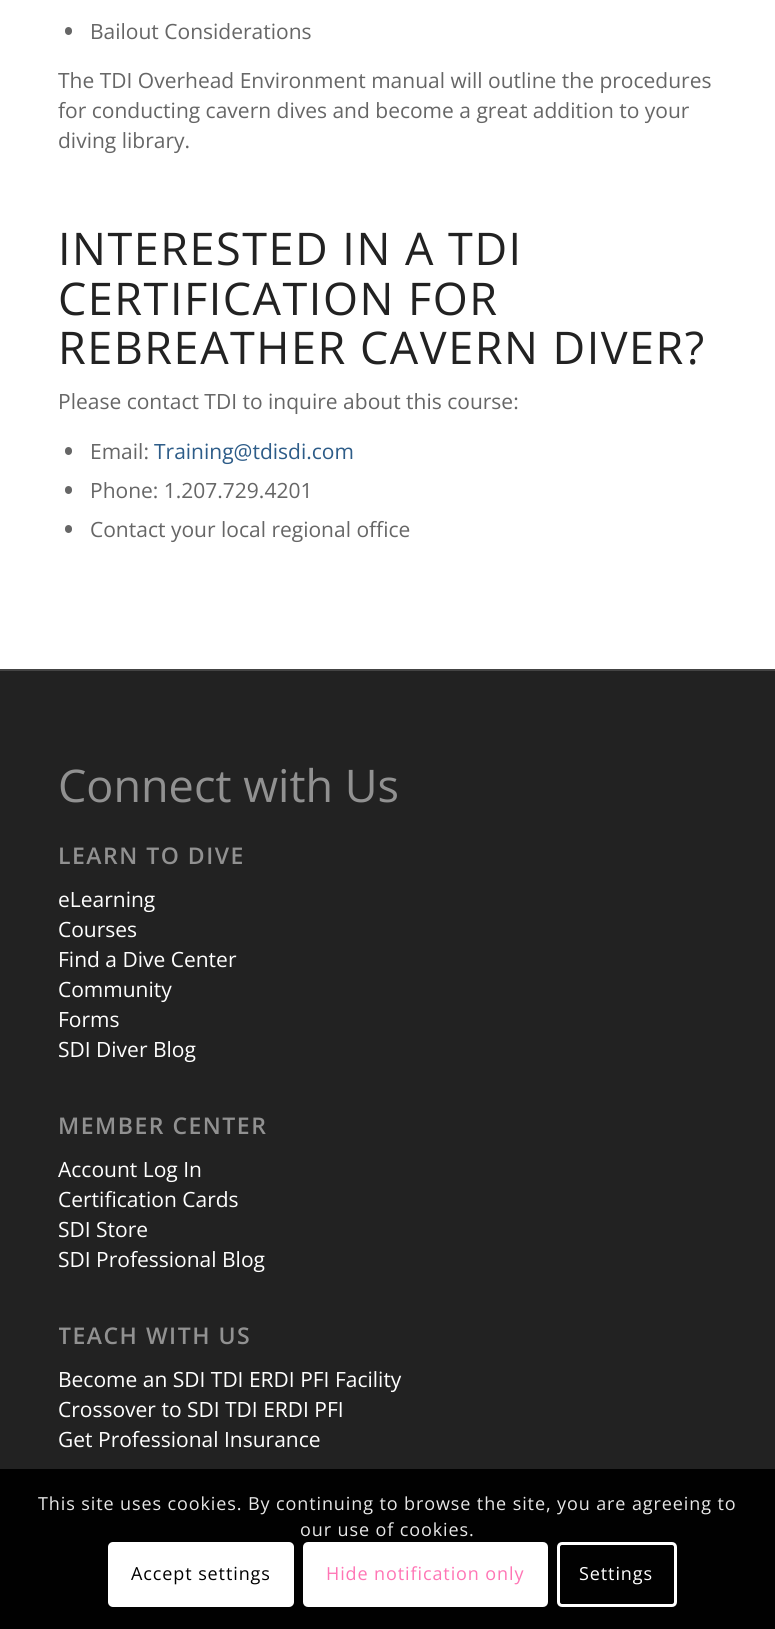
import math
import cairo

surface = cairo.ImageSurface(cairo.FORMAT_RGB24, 775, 1629)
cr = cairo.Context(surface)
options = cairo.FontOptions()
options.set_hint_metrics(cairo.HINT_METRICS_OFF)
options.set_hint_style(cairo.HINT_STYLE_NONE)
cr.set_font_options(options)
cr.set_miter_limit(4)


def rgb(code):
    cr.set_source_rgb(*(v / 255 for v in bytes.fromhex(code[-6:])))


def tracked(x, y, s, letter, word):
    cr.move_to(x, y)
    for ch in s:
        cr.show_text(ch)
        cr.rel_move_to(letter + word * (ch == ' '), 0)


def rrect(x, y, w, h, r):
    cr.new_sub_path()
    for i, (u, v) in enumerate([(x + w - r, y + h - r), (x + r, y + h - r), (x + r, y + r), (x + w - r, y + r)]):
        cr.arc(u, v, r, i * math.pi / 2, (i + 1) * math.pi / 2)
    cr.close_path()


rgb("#ffffff")
cr.paint()
rgb("#666666")
rrect(65, 27, 7, 8, 3.5)
cr.fill()
rrect(65, 447, 7, 8, 3.5)
cr.fill()
rrect(65, 486, 7, 8, 3.5)
cr.fill()
rrect(65, 525, 7, 8, 3.5)
cr.fill()
rgb("#222222")
cr.rectangle(0, 671, 775, 958)
cr.fill()
rgb("#444444")
cr.rectangle(0, 669, 775, 2)
cr.fill()
cr.set_source_rgba(0, 0, 0, 0.85)
cr.rectangle(0, 1469, 775, 160)
cr.fill()
rrect(304.5, 1543.5, 242, 62, 3.5)
rgb("#ffffff")
cr.set_line_width(3)
cr.stroke()
rrect(558.5, 1543.5, 117, 62, 3.5)
cr.stroke()
cr.set_source_rgba(0, 0, 0, 0.85)
cr.rectangle(0, 1469, 775, 160)
cr.fill()
rgb("#ffffff")
rrect(108, 1542, 186, 65, 5)
cr.fill()
rrect(304.5, 1543.5, 242, 62, 3.5)
cr.fill_preserve()
cr.stroke()
rrect(558.5, 1543.5, 117, 62, 3.5)
cr.stroke()
cr.select_font_face("Open Sans")
cr.set_font_size(21)
rgb("#666666")
for x, y, s in [
    (90, 39, "Bailout Considerations"),
    (58, 88, "The TDI Overhead Environment manual will outline the procedures"),
    (58, 118, "for conducting cavern dives and become a great addition to your"),
    (58, 148, "diving library."),
]:
    cr.move_to(x, y)
    cr.show_text(s)
cr.set_font_size(45)
rgb("#222222")
for x, y, s in [
    (58, 265, "INTERESTED IN A TDI"),
    (58, 315, "CERTIFICATION FOR"),
    (58, 364, "REBREATHER CAVERN DIVER?"),
]:
    tracked(x, y, s, 1.5, 0)
cr.set_font_size(21)
rgb("#666666")
cr.move_to(58, 409)
cr.show_text("Please contact TDI to inquire about this course:")
cr.move_to(90, 459)
cr.show_text("Email:")
rgb("#2d5c88")
cr.move_to(154, 459)
cr.show_text("Training@tdisdi.com")
rgb("#666666")
cr.move_to(90, 498)
cr.show_text("Phone: 1.207.729.4201")
cr.move_to(90, 537)
cr.show_text("Contact your local regional office")
cr.set_font_size(45)
rgb("#919191")
cr.move_to(58, 802)
cr.show_text("Connect with Us")
cr.select_font_face("Open Sans SemiBold")
cr.set_font_size(23)
tracked(58, 864, "LEARN TO DIVE", 1.5, 0)
cr.select_font_face("Open Sans")
cr.set_font_size(21)
rgb("#ffffff")
for x, y, s in [
    (58, 907, "eLearning"),
    (58, 937, "Courses"),
    (58, 967, "Find a Dive Center"),
    (58, 997, "Community"),
    (58, 1027, "Forms"),
    (58, 1057, "SDI Diver Blog"),
]:
    cr.move_to(x, y)
    cr.show_text(s)
cr.select_font_face("Open Sans SemiBold")
cr.set_font_size(23)
rgb("#919191")
tracked(58, 1134, "MEMBER CENTER", 1.5, 0)
cr.select_font_face("Open Sans")
cr.set_font_size(21)
rgb("#ffffff")
for x, y, s in [
    (58, 1177, "Account Log In"),
    (58, 1207, "Certification Cards"),
    (58, 1237, "SDI Store"),
    (58, 1267, "SDI Professional Blog"),
]:
    cr.move_to(x, y)
    cr.show_text(s)
cr.save()
cr.rectangle(59, 1305, 658, 180)
cr.clip()
cr.select_font_face("Open Sans SemiBold")
cr.set_font_size(23)
rgb("#919191")
tracked(58, 1344, "TEACH WITH US", 1.5, 0)
cr.restore()
for x, y, s in [
    (58, 1387, "Become an SDI TDI ERDI PFI Facility"),
    (58, 1417, "Crossover to SDI TDI ERDI PFI"),
    (58, 1447, "Get Professional Insurance"),
]:
    cr.move_to(x, y)
    cr.show_text(s)
cr.set_font_size(18)
rgb("#e7e7e7")
tracked(38, 1510, "This site uses cookies. By continuing to browse the site, you are agreeing to", 0.9, 0)
tracked(300, 1536, "our use of cookies.", 0.9, 0)
rgb("#000000")
tracked(131, 1580, "Accept settings", 0.9, 0)
rgb("#ff75b5")
tracked(326, 1580, "Hide notification only", 0.9, 0)
rgb("#ffffff")
tracked(579, 1580, "Settings", 0.9, 0)
surface.write_to_png("page.png")
